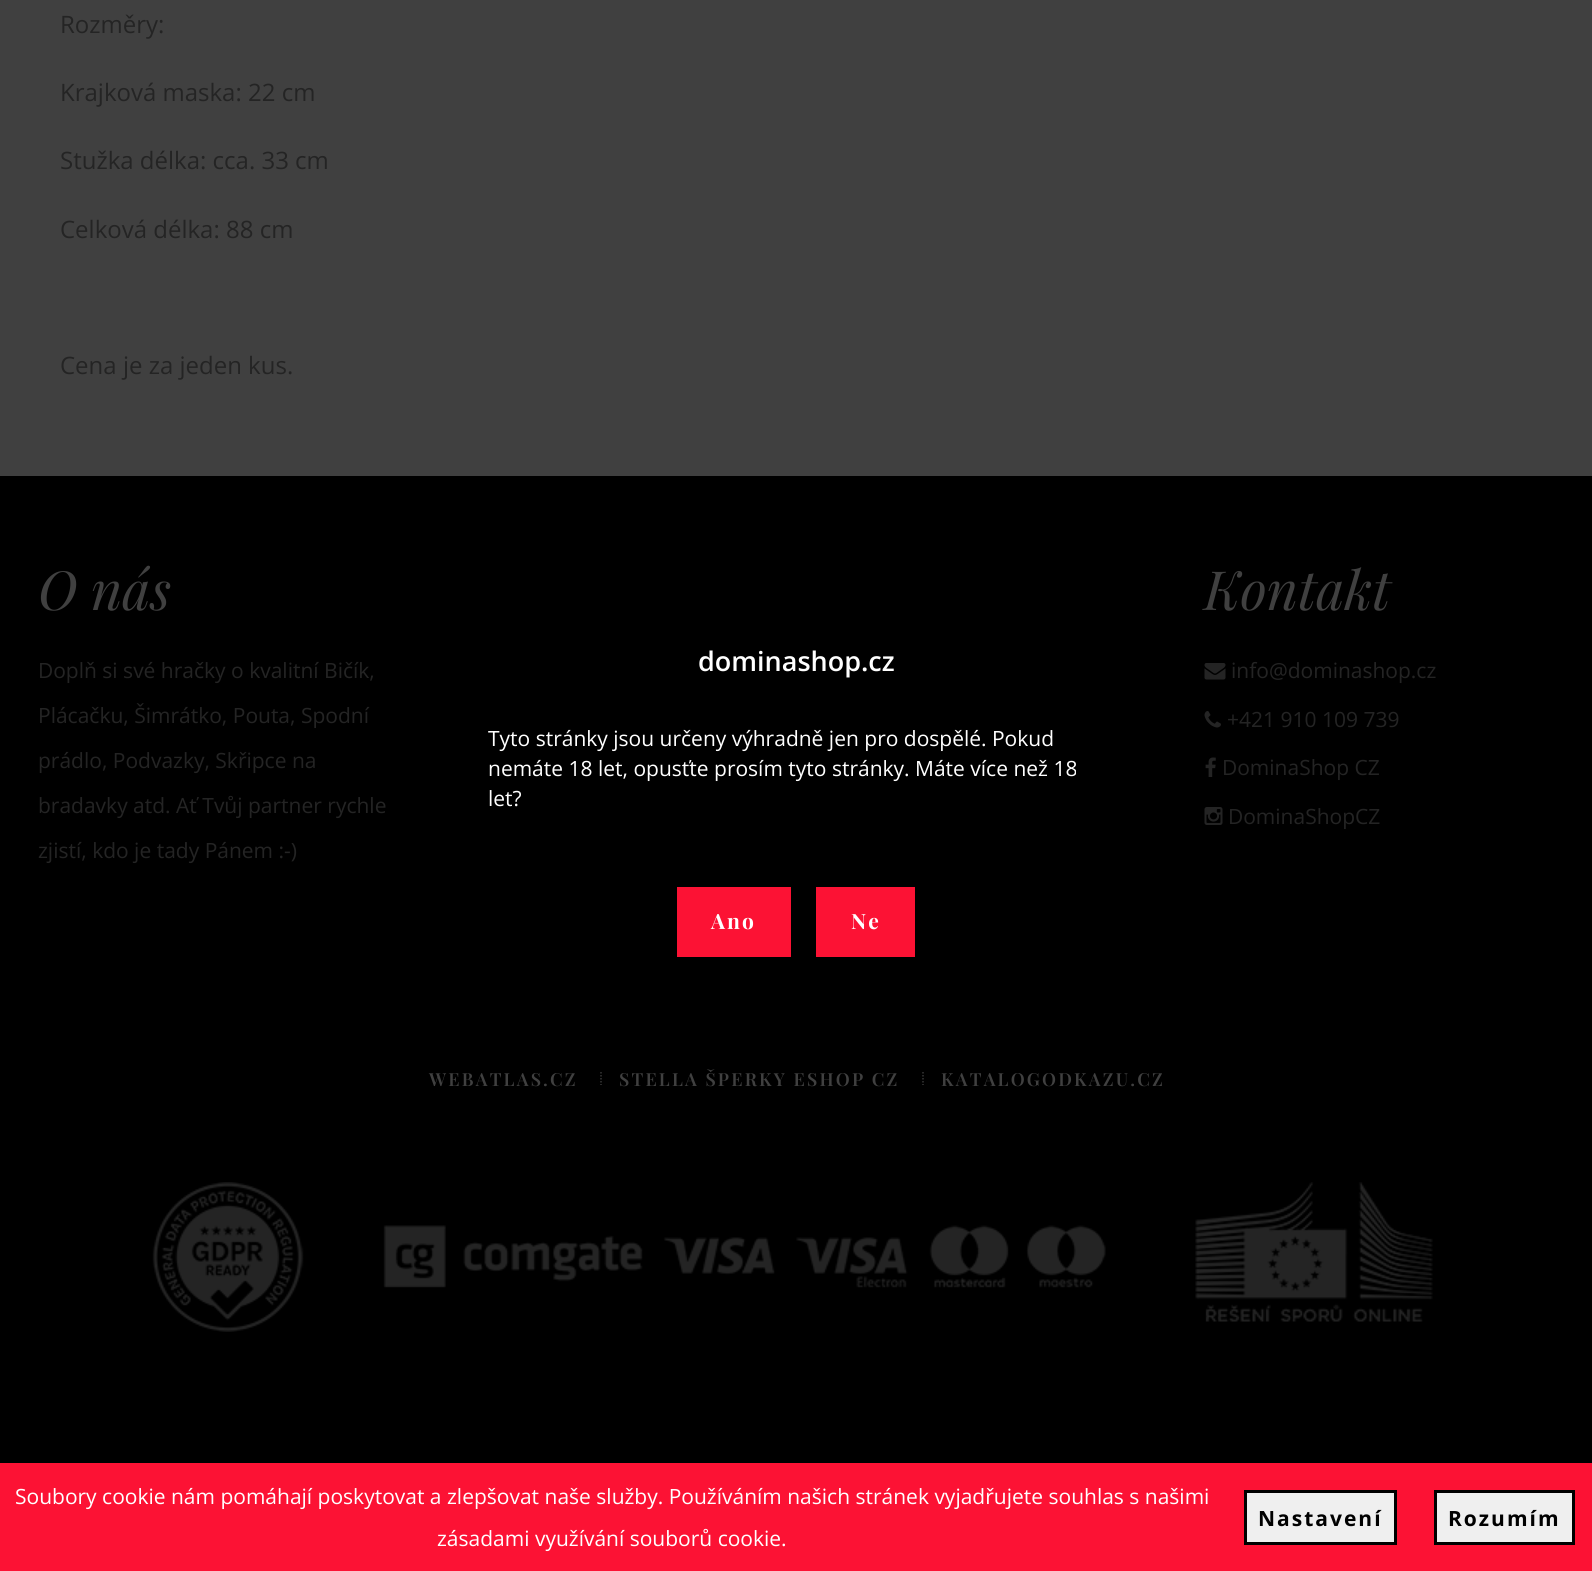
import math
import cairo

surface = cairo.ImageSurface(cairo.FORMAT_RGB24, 1592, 1571)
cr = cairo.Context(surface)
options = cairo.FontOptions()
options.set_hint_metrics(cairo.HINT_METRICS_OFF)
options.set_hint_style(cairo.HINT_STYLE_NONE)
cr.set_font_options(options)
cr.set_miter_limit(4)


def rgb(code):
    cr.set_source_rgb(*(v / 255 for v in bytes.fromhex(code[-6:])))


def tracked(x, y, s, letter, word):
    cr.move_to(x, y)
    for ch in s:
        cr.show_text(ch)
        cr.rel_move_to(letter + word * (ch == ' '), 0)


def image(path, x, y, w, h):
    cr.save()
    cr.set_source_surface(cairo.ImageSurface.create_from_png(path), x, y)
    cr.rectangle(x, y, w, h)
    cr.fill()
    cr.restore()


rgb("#404040")
cr.paint()
rgb("#000000")
cr.rectangle(0, 476, 1592, 987)
cr.fill()
image("img/1.png", 1204, 663, 22, 17)
image("img/2.png", 1204, 711, 17, 17)
image("img/3.png", 1205, 757, 11, 20)
image("img/4.png", 1204, 807, 19, 18)
rgb("#fc1234")
cr.rectangle(677, 887, 114, 70)
cr.fill()
cr.rectangle(816, 887, 99, 70)
cr.fill()
cr.new_path()
cr.move_to(601, 1072)
cr.line_to(601, 1085)
rgb("#373737")
cr.set_line_width(1.5)
cr.set_dash([1.5, 1.5])
cr.stroke()
cr.new_path()
cr.move_to(923, 1072)
cr.line_to(923, 1085)
cr.stroke()
image("img/5.png", 152, 1182, 152, 150)
image("img/6.png", 383, 1225, 723, 63)
image("img/7.png", 1195, 1182, 238, 140)
rgb("#fc1234")
cr.rectangle(0, 1463, 1592, 108)
cr.fill()
rgb("#efefef")
cr.rectangle(1245.5, 1491.5, 150, 52)
cr.fill_preserve()
rgb("#000000")
cr.set_line_width(3)
cr.set_dash([])
cr.stroke()
rgb("#efefef")
cr.rectangle(1435.5, 1491.5, 138, 52)
cr.fill_preserve()
rgb("#000000")
cr.stroke()
cr.select_font_face("Open Sans")
cr.set_font_size(24)
rgb("#242424")
for x, y, s in [
    (60, 33, "Rozměry:"),
    (60, 101, "Krajková maska: 22 cm"),
    (60, 169, "Stužka délka: cca. 33 cm"),
    (60, 238, "Celková délka: 88 cm"),
    (60, 374, "Cena je za jeden kus."),
]:
    cr.move_to(x, y)
    cr.show_text(s)
cr.select_font_face("Playfair Display", cairo.FONT_SLANT_ITALIC)
cr.set_font_size(54)
rgb("#404040")
cr.move_to(38, 610)
cr.show_text("O nás")
cr.select_font_face("Open Sans")
cr.set_font_size(21)
rgb("#242424")
for x, y, s in [
    (38, 678, "Doplň si své hračky o kvalitní Bičík,"),
    (38, 723, "Plácačku, Šimrátko, Pouta, Spodní"),
    (38, 768, "prádlo, Podvazky, Skřipce na"),
    (38, 813, "bradavky atd. Ať Tvůj partner rychle"),
    (38, 858, "zjistí, kdo je tady Pánem :-)"),
]:
    cr.move_to(x, y)
    cr.show_text(s)
cr.select_font_face("Playfair Display", cairo.FONT_SLANT_ITALIC)
cr.set_font_size(54)
rgb("#404040")
cr.move_to(1204, 610)
cr.show_text("Kontakt")
cr.select_font_face("Open Sans")
cr.set_font_size(21)
rgb("#242424")
for x, y, s in [
    (1231, 678, "info@dominashop.cz"),
    (1227, 727, "+421 910 109 739"),
    (1222, 775, "DominaShop CZ"),
    (1228, 824, "DominaShopCZ"),
]:
    cr.move_to(x, y)
    cr.show_text(s)
cr.select_font_face("Open Sans SemiBold")
cr.set_font_size(27)
rgb("#ffffff")
cr.move_to(698, 671)
cr.show_text("dominashop.cz")
cr.select_font_face("Open Sans")
cr.set_font_size(21)
for x, y, s in [
    (488, 746, "Tyto stránky jsou určeny výhradně jen pro dospělé. Pokud"),
    (488, 776, "nemáte 18 let, opusťte prosím tyto stránky. Máte více než 18"),
    (488, 806, "let?"),
]:
    cr.move_to(x, y)
    cr.show_text(s)
cr.select_font_face("Playfair Display", cairo.FONT_SLANT_NORMAL, cairo.FONT_WEIGHT_BOLD)
tracked(711, 929, "Ano", 2, 0)
tracked(851, 929, "Ne", 2, 0)
cr.select_font_face("Playfair Display SemiBold")
cr.set_font_size(18)
rgb("#404040")
for x, y, s in [
    (429, 1086, "WEBATLAS.CZ"),
    (619, 1086, "STELLA ŠPERKY ESHOP CZ"),
    (941, 1086, "KATALOGODKAZU.CZ"),
]:
    tracked(x, y, s, 2.2, 0)
cr.select_font_face("Open Sans")
cr.set_font_size(21)
rgb("#ffffff")
cr.move_to(15, 1504)
cr.show_text("Soubory cookie nám pomáhají poskytovat a zlepšovat naše služby. Používáním našich stránek vyjadřujete souhlas s našimi")
cr.move_to(437, 1546)
cr.show_text("zásadami využívání souborů cookie.")
cr.select_font_face("Open Sans", cairo.FONT_SLANT_NORMAL, cairo.FONT_WEIGHT_BOLD)
rgb("#000000")
tracked(1258, 1526, "Nastavení", 2, 0)
tracked(1448, 1526, "Rozumím", 2, 0)
surface.write_to_png("page.png")
